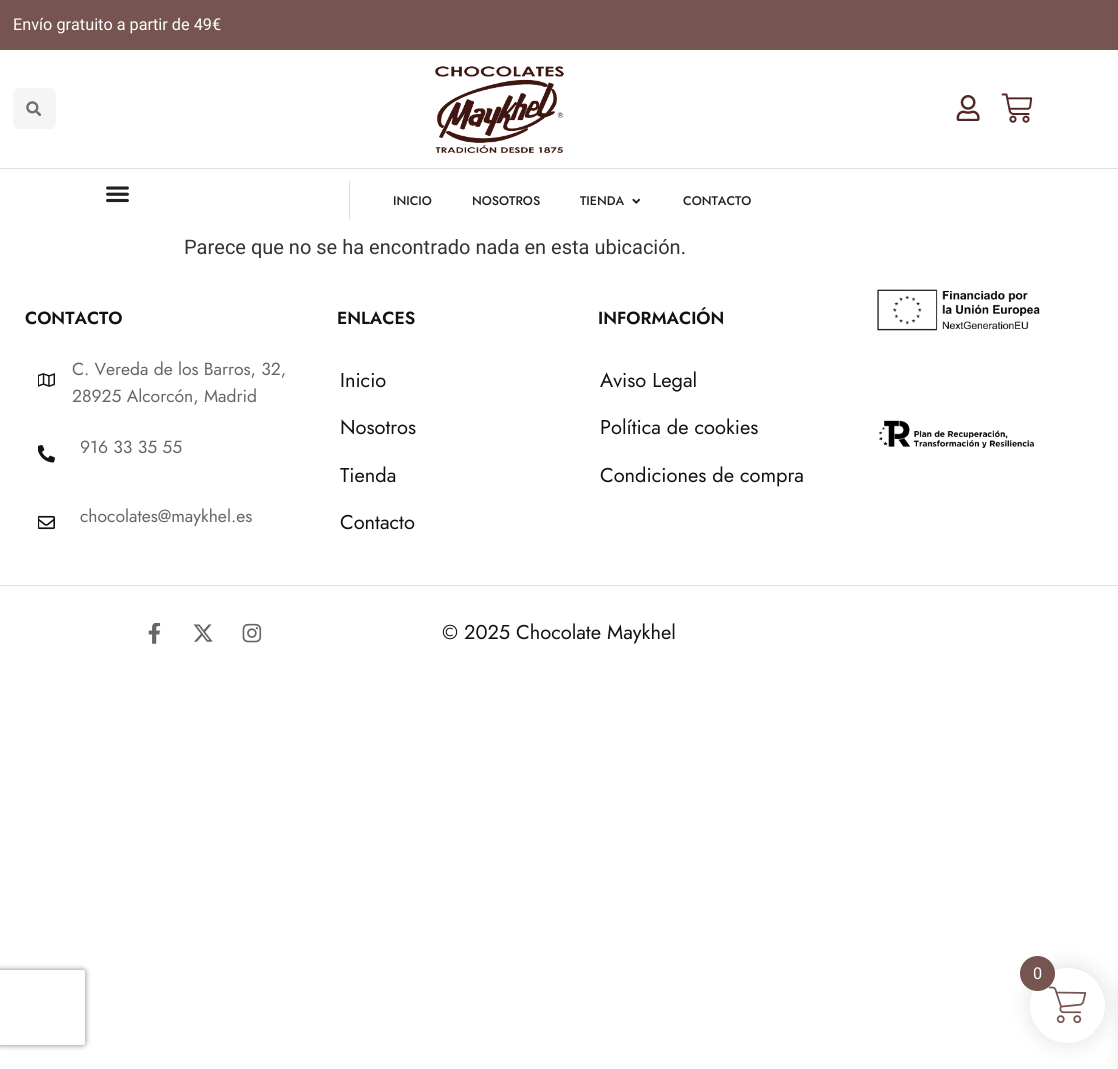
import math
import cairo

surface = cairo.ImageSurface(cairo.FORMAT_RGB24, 1118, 1069)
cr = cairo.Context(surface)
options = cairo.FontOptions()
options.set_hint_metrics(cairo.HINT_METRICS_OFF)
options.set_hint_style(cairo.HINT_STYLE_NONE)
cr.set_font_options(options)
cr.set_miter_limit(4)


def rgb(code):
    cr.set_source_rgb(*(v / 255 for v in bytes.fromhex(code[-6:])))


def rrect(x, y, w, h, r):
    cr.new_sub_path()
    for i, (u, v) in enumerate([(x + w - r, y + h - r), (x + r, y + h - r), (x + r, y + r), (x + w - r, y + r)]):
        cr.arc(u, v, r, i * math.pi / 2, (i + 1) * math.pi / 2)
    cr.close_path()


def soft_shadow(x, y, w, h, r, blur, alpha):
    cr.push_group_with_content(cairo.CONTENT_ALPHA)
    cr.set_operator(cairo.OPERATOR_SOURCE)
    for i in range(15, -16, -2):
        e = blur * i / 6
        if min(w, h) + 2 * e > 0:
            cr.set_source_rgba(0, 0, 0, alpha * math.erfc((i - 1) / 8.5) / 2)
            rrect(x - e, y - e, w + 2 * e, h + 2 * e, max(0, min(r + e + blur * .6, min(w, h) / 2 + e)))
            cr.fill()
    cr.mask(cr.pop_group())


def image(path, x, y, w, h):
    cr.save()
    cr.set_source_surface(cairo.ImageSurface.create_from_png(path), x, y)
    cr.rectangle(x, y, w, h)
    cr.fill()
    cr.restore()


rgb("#ffffff")
cr.paint()
rgb("#765550")
cr.rectangle(0, 0, 1118, 50)
cr.fill()
rgb("#f5f5f5")
rrect(13, 88, 43, 41, 6)
cr.fill()
image("img/1.png", 26, 101, 15, 15)
image("img/2.png", 435, 66, 129, 87)
image("img/3.png", 956, 95, 24, 26)
image("img/4.png", 1001, 93, 32, 30)
rgb("#dfdfdf")
cr.rectangle(0, 168, 1118, 1)
cr.fill()
image("img/5.png", 106, 186, 23, 17)
cr.rectangle(349, 181, 1, 39)
cr.fill()
image("img/6.png", 632, 198, 9, 6)
image("img/7.png", 38, 373, 17, 14)
image("img/8.png", 38, 445, 17, 18)
image("img/9.png", 38, 515, 17, 15)
image("img/10.png", 877, 289, 163, 42)
image("img/11.png", 878, 420, 156, 29)
rgb("#e0e0e0")
cr.rectangle(0, 585, 1118, 1)
cr.fill()
image("img/12.png", 148, 623, 13, 21)
image("img/13.png", 193, 624, 20, 18)
image("img/14.png", 242, 623, 20, 20)
cr.save()
cr.set_fill_rule(cairo.FILL_RULE_EVEN_ODD)
cr.new_path()
cr.move_to(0, 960)
cr.line_to(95, 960)
cr.line_to(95, 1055)
cr.line_to(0, 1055)
cr.close_path()
cr.move_to(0.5, 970)
cr.line_to(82.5, 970)
cr.curve_to(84, 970, 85, 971, 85, 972.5)
cr.line_to(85, 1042.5)
cr.curve_to(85, 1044, 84, 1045, 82.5, 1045)
cr.line_to(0.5, 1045)
cr.curve_to(-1, 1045, -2, 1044, -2, 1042.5)
cr.line_to(-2, 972.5)
cr.curve_to(-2, 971, -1, 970, 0.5, 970)
cr.close_path()
cr.clip()
rgb("#808080")
soft_shadow(-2, 970, 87, 75, 2.5, 3, 1)
cr.restore()
rgb("#000000")
soft_shadow(1028, 965, 80, 80, 40, 9.5, 0.1)
soft_shadow(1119, 988, 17, 81, 0, 6, 0.1)
rgb("#ffffff")
cr.arc(1067.5, 1005.5, 37.5, 0, 2 * math.pi)
cr.fill()
image("img/15.png", 1048, 986, 39, 38)
rgb("#765550")
cr.arc(1037.5, 973.5, 17.5, 0, 2 * math.pi)
cr.fill()
cr.select_font_face("Roboto")
cr.set_font_size(16.25)
rgb("#ffffff")
cr.move_to(13, 30)
cr.show_text("Envío gratuito a partir de 49€")
cr.select_font_face("Jost Medium")
cr.set_font_size(12.5)
rgb("#1f2124")
for x, y, s in [
    (393, 205, "INICIO"),
    (472, 205, "NOSOTROS"),
    (580, 205, "TIENDA"),
    (683, 205, "CONTACTO"),
]:
    cr.move_to(x, y)
    cr.show_text(s)
cr.select_font_face("Roboto")
cr.set_font_size(20)
rgb("#333333")
cr.move_to(184, 254)
cr.show_text("Parece que no se ha encontrado nada en esta ubicación.")
cr.select_font_face("Jost SemiBold")
cr.set_font_size(17.5)
rgb("#101311")
cr.move_to(25, 324)
cr.show_text("CONTACTO")
cr.select_font_face("Jost")
rgb("#666666")
for x, y, s in [
    (72, 375, "C. Vereda de los Barros, 32,"),
    (72, 402, "28925 Alcorcón, Madrid"),
    (80, 453, "916 33 35 55"),
    (80, 522, "chocolates@maykhel.es"),
]:
    cr.move_to(x, y)
    cr.show_text(s)
cr.select_font_face("Jost SemiBold")
rgb("#101311")
cr.move_to(337, 324)
cr.show_text("ENLACES")
cr.select_font_face("Jost")
cr.set_font_size(20)
for x, y, s in [
    (340, 387, "Inicio"),
    (340, 434, "Nosotros"),
    (340, 482, "Tienda"),
    (340, 529, "Contacto"),
]:
    cr.move_to(x, y)
    cr.show_text(s)
cr.select_font_face("Jost SemiBold")
cr.set_font_size(17.5)
cr.move_to(598, 324)
cr.show_text("INFORMACIÓN")
cr.select_font_face("Jost")
cr.set_font_size(20)
for x, y, s in [
    (600, 387, "Aviso Legal"),
    (600, 434, "Política de cookies"),
    (600, 482, "Condiciones de compra"),
    (442, 639, "© 2025 Chocolate Maykhel"),
]:
    cr.move_to(x, y)
    cr.show_text(s)
cr.select_font_face("Roboto")
cr.set_font_size(16.25)
rgb("#ffffff")
cr.move_to(1033, 979)
cr.show_text("0")
surface.write_to_png("page.png")
